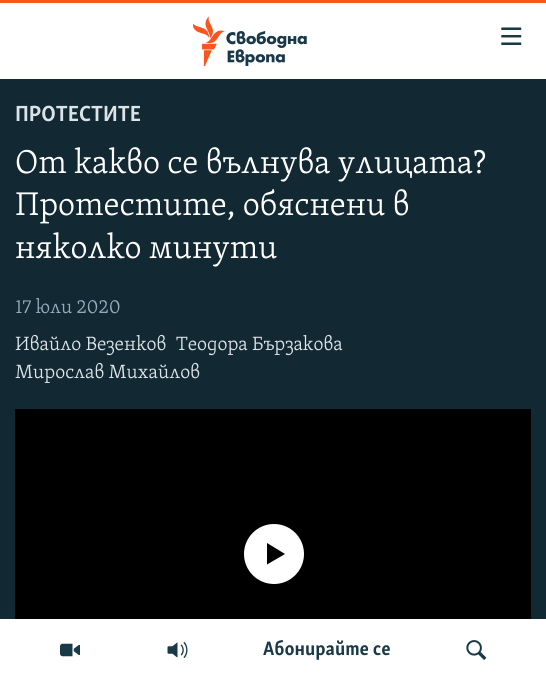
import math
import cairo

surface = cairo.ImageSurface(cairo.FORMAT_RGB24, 546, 681)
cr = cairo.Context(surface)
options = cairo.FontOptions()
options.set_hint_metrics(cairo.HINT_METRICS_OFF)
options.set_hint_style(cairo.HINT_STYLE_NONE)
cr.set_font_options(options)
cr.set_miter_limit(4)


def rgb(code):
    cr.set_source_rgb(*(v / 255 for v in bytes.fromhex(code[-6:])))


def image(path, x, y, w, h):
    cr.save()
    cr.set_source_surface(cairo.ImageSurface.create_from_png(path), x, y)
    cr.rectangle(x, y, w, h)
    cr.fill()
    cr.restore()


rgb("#122832")
cr.paint()
rgb("#000000")
cr.rectangle(15, 409, 516, 210)
cr.fill()
rgb("#ffffff")
cr.arc(274, 554, 30, 0, 2 * math.pi)
cr.fill()
rgb("#000000")
cr.new_path()
cr.move_to(267, 564.5)
cr.line_to(285, 554)
cr.line_to(267, 543)
cr.close_path()
cr.fill()
rgb("#ffffff")
cr.rectangle(0, 3, 546, 76)
cr.fill()
rgb("#fa5420")
cr.rectangle(0, 0, 546, 3)
cr.fill()
image("img/1.png", 193, 16, 114, 50)
image("img/2.png", 501, 27, 21, 18)
rgb("#ffffff")
cr.rectangle(0, 619, 546, 62)
cr.fill()
image("img/3.png", 60, 643, 20, 14)
image("img/4.png", 167, 641, 21, 18)
image("img/5.png", 466, 640, 21, 20)
cr.select_font_face("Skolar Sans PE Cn", cairo.FONT_SLANT_NORMAL, cairo.FONT_WEIGHT_BOLD)
cr.set_font_size(22.5)
rgb("#dce4e8")
cr.move_to(15, 121)
cr.show_text("ПРОТЕСТИТЕ")
cr.select_font_face("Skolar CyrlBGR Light")
cr.set_font_size(33.75)
rgb("#ffffff")
for x, y, s in [
    (15, 173, "От какво се вълнува улицата?"),
    (15, 215, "Протестите, обяснени в"),
    (15, 258, "няколко минути"),
]:
    cr.move_to(x, y)
    cr.show_text(s)
cr.set_font_size(19.75)
rgb("#95adb9")
cr.move_to(15, 313)
cr.show_text("17 юли 2020")
rgb("#dce4e8")
for x, y, s in [
    (15, 350, "Ивайло Везенков"),
    (176, 350, "Теодора Бързакова"),
    (15, 378, "Мирослав Михайлов"),
]:
    cr.move_to(x, y)
    cr.show_text(s)
cr.select_font_face("Skolar Sans PE Cn", cairo.FONT_SLANT_NORMAL, cairo.FONT_WEIGHT_BOLD)
cr.set_font_size(20)
rgb("#1a3948")
cr.move_to(263, 655)
cr.show_text("Абонирайте се")
surface.write_to_png("page.png")
